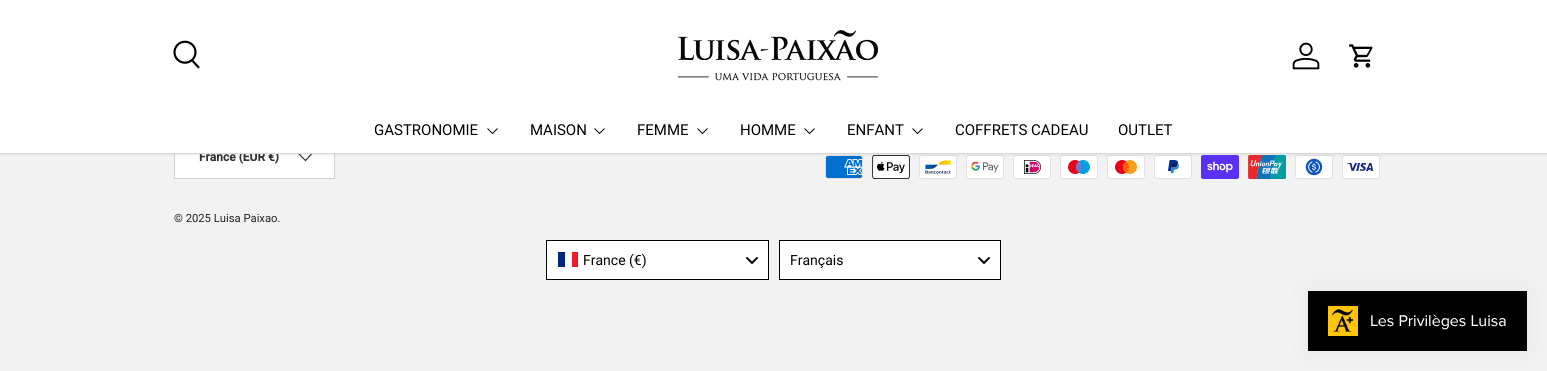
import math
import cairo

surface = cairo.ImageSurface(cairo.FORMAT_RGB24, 1547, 371)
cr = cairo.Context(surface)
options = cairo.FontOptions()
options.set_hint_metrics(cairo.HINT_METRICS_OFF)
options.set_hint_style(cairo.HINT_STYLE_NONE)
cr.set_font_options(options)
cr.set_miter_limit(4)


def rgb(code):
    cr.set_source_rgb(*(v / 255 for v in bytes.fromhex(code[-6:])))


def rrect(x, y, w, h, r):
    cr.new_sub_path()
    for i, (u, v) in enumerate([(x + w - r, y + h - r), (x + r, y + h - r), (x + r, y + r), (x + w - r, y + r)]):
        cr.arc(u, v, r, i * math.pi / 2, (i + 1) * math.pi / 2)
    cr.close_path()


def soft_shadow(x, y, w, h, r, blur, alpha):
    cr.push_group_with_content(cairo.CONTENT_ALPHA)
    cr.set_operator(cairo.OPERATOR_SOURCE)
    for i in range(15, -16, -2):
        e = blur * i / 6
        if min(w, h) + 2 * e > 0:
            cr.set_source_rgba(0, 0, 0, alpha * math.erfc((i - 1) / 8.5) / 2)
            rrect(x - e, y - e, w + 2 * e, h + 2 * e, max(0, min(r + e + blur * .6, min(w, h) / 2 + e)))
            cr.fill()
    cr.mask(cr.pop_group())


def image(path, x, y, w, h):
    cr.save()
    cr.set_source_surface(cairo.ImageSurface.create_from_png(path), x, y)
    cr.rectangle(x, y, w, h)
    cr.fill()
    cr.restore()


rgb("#f2f2f2")
cr.paint()
rgb("#ffffff")
cr.rectangle(175, 154, 159, 24)
cr.fill()
cr.rectangle(174.5, 135.5, 160, 43)
rgb("#d3d3d3")
cr.set_line_width(1)
cr.stroke()
cr.new_path()
cr.move_to(311.5, 154)
cr.line_to(305.5, 160.5)
cr.line_to(299, 154)
rgb("#333333")
cr.set_line_width(1.2)
cr.stroke()
image("img/5.png", 825, 155, 38, 24)
image("img/6.png", 872, 155, 38, 24)
image("img/7.png", 919, 155, 38, 24)
image("img/8.png", 966, 155, 38, 24)
image("img/9.png", 1013, 155, 38, 24)
image("img/10.png", 1060, 155, 38, 24)
image("img/11.png", 1107, 155, 38, 24)
image("img/12.png", 1154, 155, 38, 24)
image("img/13.png", 1201, 155, 38, 24)
image("img/14.png", 1248, 155, 38, 24)
image("img/15.png", 1295, 155, 38, 24)
image("img/16.png", 1342, 155, 38, 24)
rgb("#000000")
soft_shadow(-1, -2, 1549, 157, 0, 1.5, 0.08)
rgb("#ffffff")
cr.rectangle(547, 241, 221, 38)
cr.fill()
image("img/17.png", 746, 257, 12, 7)
cr.rectangle(546.5, 240.5, 222, 39)
rgb("#000000")
cr.set_line_width(1)
cr.stroke()
rgb("#00267f")
cr.rectangle(558, 252, 7, 15)
cr.fill()
rgb("#f31830")
cr.rectangle(572, 252, 6, 15)
cr.fill()
cr.rectangle(558.5, 252.5, 19, 14)
cr.set_source_rgba(0, 0, 0, 0.05)
cr.stroke()
rgb("#ffffff")
cr.rectangle(780, 241, 220, 38)
cr.fill()
image("img/17.png", 978, 257, 12, 7)
cr.rectangle(779.5, 240.5, 221, 39)
rgb("#000000")
cr.stroke()
rgb("#000000")
soft_shadow(1308, 291, 219, 60, 0, 12.5, 0.05)
image("img/18.png", 1308, 291, 219, 60)
cr.select_font_face("Roboto", cairo.FONT_SLANT_NORMAL, cairo.FONT_WEIGHT_BOLD)
cr.set_font_size(12)
rgb("#333333")
cr.move_to(199, 161)
cr.show_text("France (EUR €)")
rgb("#ffffff")
cr.rectangle(0, 0, 1547, 153)
cr.fill()
cr.new_path()
cr.move_to(922.5, 128.5)
cr.line_to(917.5, 133.5)
cr.line_to(912.5, 128.5)
rgb("#000000")
cr.stroke()
cr.select_font_face("Roboto")
cr.set_font_size(15)
cr.move_to(847, 135)
cr.show_text("ENFANT")
cr.new_path()
cr.move_to(814.5, 128.5)
cr.line_to(809.5, 133.5)
cr.line_to(804.5, 128.5)
cr.stroke()
cr.move_to(740, 135)
cr.show_text("HOMME")
cr.new_path()
cr.move_to(707.5, 128.5)
cr.line_to(702.5, 133.5)
cr.line_to(697.5, 128.5)
cr.stroke()
cr.move_to(637, 135)
cr.show_text("FEMME")
cr.new_path()
cr.move_to(604.5, 128.5)
cr.line_to(599.5, 133.5)
cr.line_to(594.5, 128.5)
cr.stroke()
cr.move_to(530, 135)
cr.show_text("MAISON")
cr.new_path()
cr.move_to(497.5, 128.5)
cr.line_to(492.5, 133.5)
cr.line_to(487.5, 128.5)
cr.stroke()
cr.move_to(374, 135)
cr.show_text("GASTRONOMIE")
image("img/4.png", 1349, 44, 24, 24)
image("img/1.png", 173, 40, 27, 29)
rgb("#d9d9d9")
cr.rectangle(0, 153, 1547, 1)
cr.fill()
rgb("#000000")
cr.move_to(1118, 135)
cr.show_text("OUTLET")
cr.move_to(955, 135)
cr.show_text("COFFRETS CADEAU")
image("img/3.png", 1292, 42, 28, 28)
image("img/2.png", 678, 30, 200, 51)
cr.set_font_size(11.25)
rgb("#222222")
cr.move_to(174, 222)
cr.show_text("© 2025 Luisa Paixao.")
cr.set_font_size(14)
rgb("#000000")
cr.move_to(583, 265)
cr.show_text("France (€)")
cr.move_to(790, 265)
cr.show_text("Français")
surface.write_to_png("page.png")
